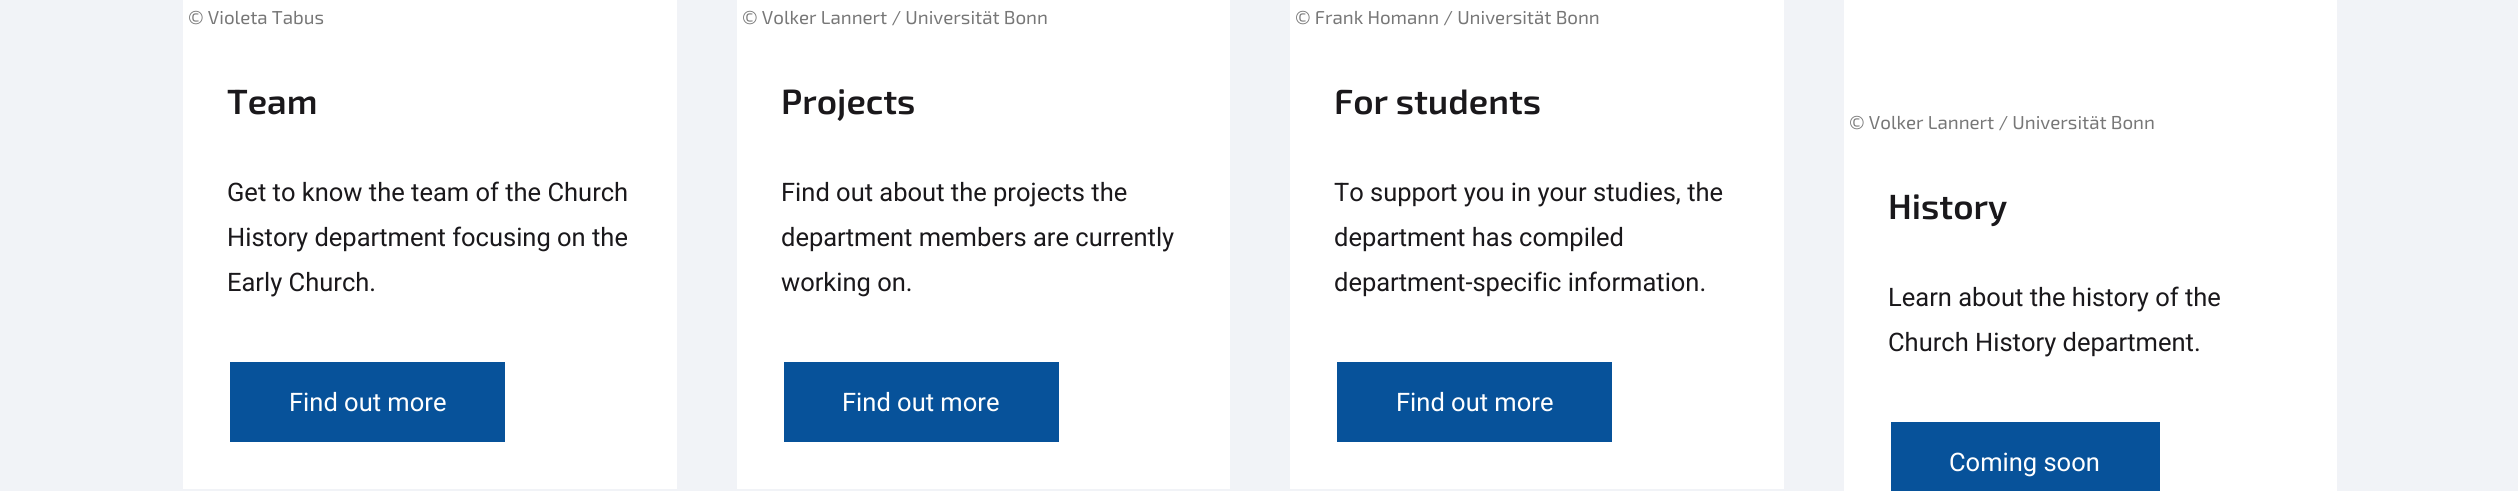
import math
import cairo

surface = cairo.ImageSurface(cairo.FORMAT_RGB24, 2518, 491)
cr = cairo.Context(surface)
options = cairo.FontOptions()
options.set_hint_metrics(cairo.HINT_METRICS_OFF)
options.set_hint_style(cairo.HINT_STYLE_NONE)
cr.set_font_options(options)
cr.set_miter_limit(4)


def rgb(code):
    cr.set_source_rgb(*(v / 255 for v in bytes.fromhex(code[-6:])))


rgb("#f1f3f7")
cr.paint()
for x, y, w, h, color in [
    (183, 0, 494, 489, "#ffffff"),
    (230, 362, 275, 80, "#07529a"),
    (737, 0, 493, 489, "#ffffff"),
    (784, 362, 275, 80, "#07529a"),
    (1290, 0, 494, 489, "#ffffff"),
    (1337, 362, 275, 80, "#07529a"),
    (1844, 0, 493, 491, "#ffffff"),
    (1891, 422, 269, 69, "#07529a"),
]:
    rgb(color)
    cr.rectangle(x, y, w, h)
    cr.fill()
cr.select_font_face("Exo 2")
cr.set_font_size(18.75)
rgb("#777777")
cr.move_to(188, 24)
cr.show_text("© Violeta Tabus")
cr.select_font_face("Exo 2 SemiBold")
cr.set_font_size(35)
rgb("#1a181b")
cr.move_to(227, 114)
cr.show_text("Team")
cr.select_font_face("Roboto")
cr.set_font_size(25.5)
for x, y, s in [
    (227, 201, "Get to know the team of the Church"),
    (227, 246, "History department focusing on the"),
    (227, 291, "Early Church."),
]:
    cr.move_to(x, y)
    cr.show_text(s)
rgb("#ffffff")
cr.move_to(289, 411)
cr.show_text("Find out more")
cr.select_font_face("Exo 2")
cr.set_font_size(18.75)
rgb("#777777")
cr.move_to(742, 24)
cr.show_text("© Volker Lannert / Universität Bonn")
cr.select_font_face("Exo 2 SemiBold")
cr.set_font_size(35)
rgb("#1a181b")
cr.move_to(781, 114)
cr.show_text("Projects")
cr.select_font_face("Roboto")
cr.set_font_size(25.5)
for x, y, s in [
    (781, 201, "Find out about the projects the"),
    (781, 246, "department members are currently"),
    (781, 291, "working on."),
]:
    cr.move_to(x, y)
    cr.show_text(s)
rgb("#ffffff")
cr.move_to(842, 411)
cr.show_text("Find out more")
cr.select_font_face("Exo 2")
cr.set_font_size(18.75)
rgb("#777777")
cr.move_to(1295, 24)
cr.show_text("© Frank Homann / Universität Bonn")
cr.select_font_face("Exo 2 SemiBold")
cr.set_font_size(35)
rgb("#1a181b")
cr.move_to(1334, 114)
cr.show_text("For students")
cr.select_font_face("Roboto")
cr.set_font_size(25.5)
for x, y, s in [
    (1334, 201, "To support you in your studies, the"),
    (1334, 246, "department has compiled"),
    (1334, 291, "department-specific information."),
]:
    cr.move_to(x, y)
    cr.show_text(s)
rgb("#ffffff")
cr.move_to(1396, 411)
cr.show_text("Find out more")
cr.select_font_face("Exo 2")
cr.set_font_size(18.75)
rgb("#777777")
cr.move_to(1849, 129)
cr.show_text("© Volker Lannert / Universität Bonn")
cr.select_font_face("Exo 2 SemiBold")
cr.set_font_size(35)
rgb("#1a181b")
cr.move_to(1888, 219)
cr.show_text("History")
cr.select_font_face("Roboto")
cr.set_font_size(25.5)
cr.move_to(1888, 306)
cr.show_text("Learn about the history of the")
cr.move_to(1888, 351)
cr.show_text("Church History department.")
rgb("#ffffff")
cr.move_to(1949, 471)
cr.show_text("Coming soon")
surface.write_to_png("page.png")
